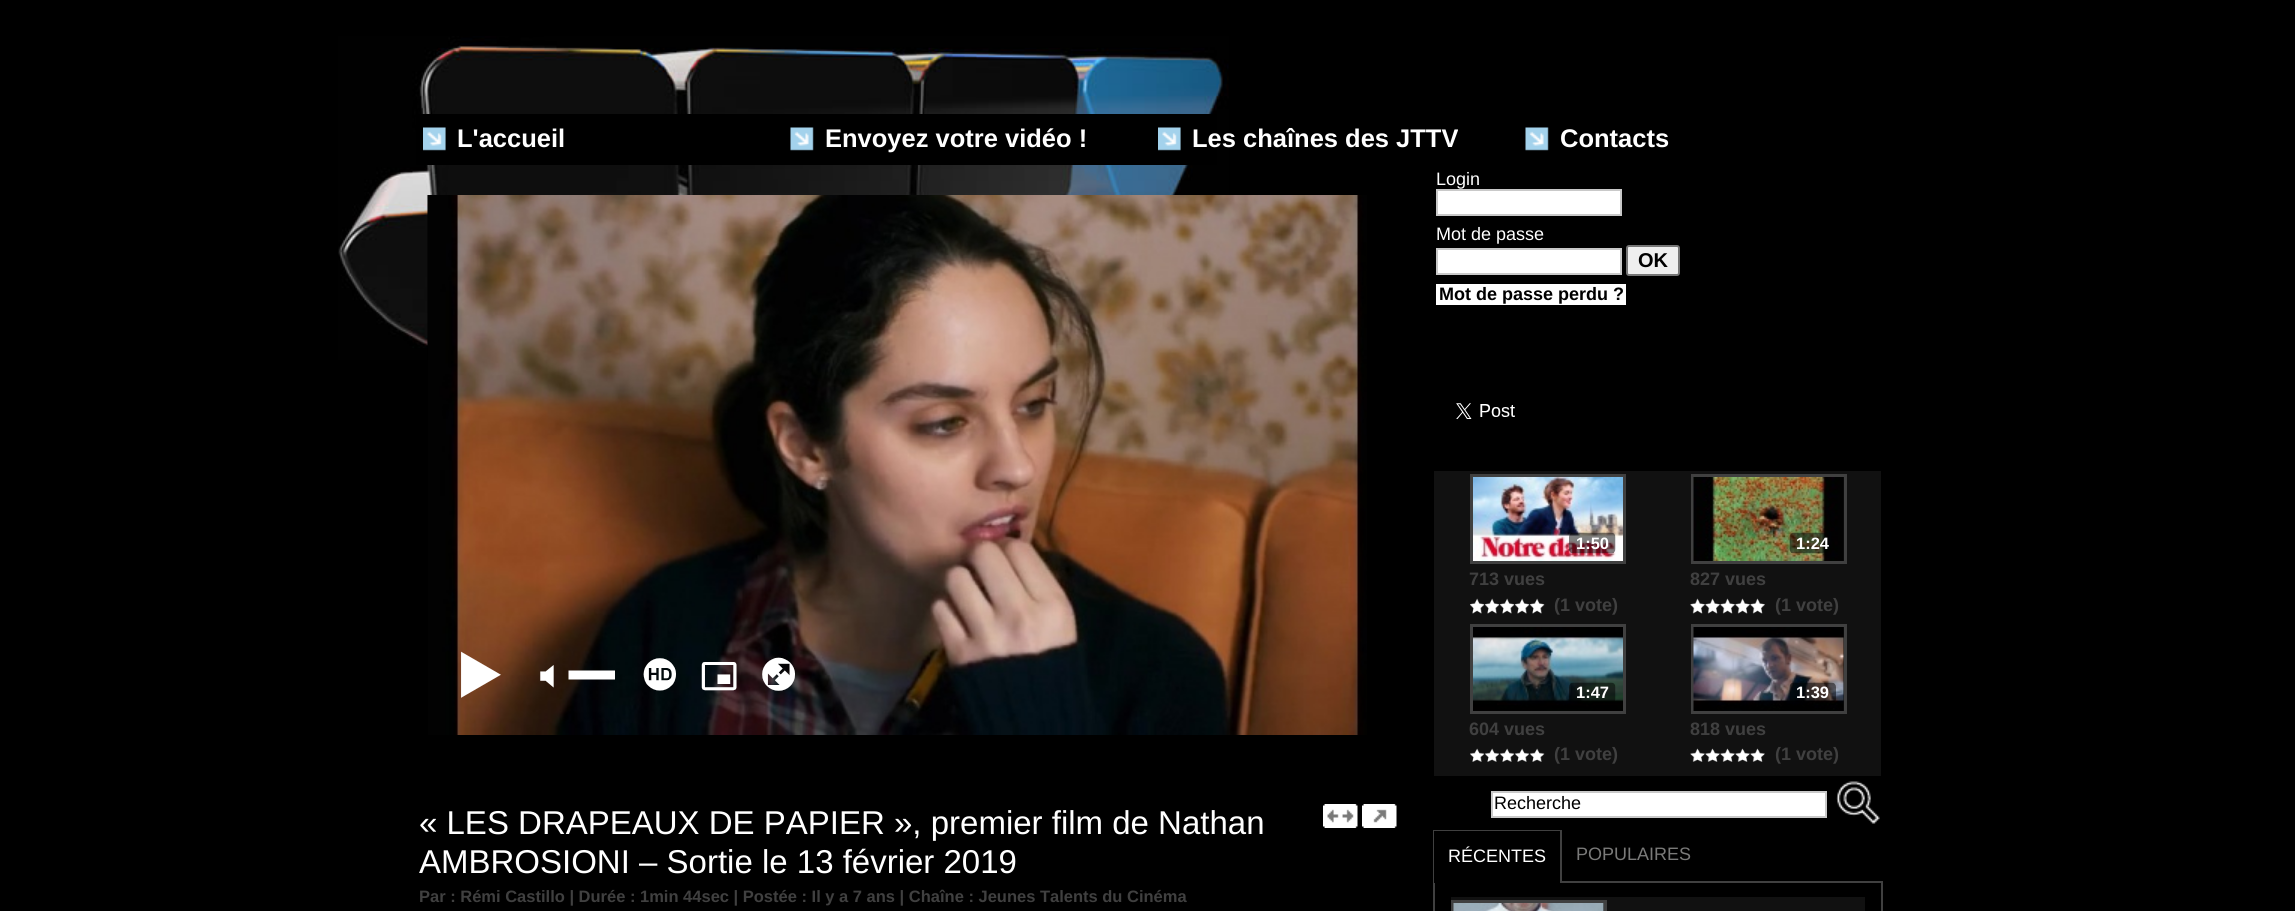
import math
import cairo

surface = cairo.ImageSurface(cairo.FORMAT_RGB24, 2295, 911)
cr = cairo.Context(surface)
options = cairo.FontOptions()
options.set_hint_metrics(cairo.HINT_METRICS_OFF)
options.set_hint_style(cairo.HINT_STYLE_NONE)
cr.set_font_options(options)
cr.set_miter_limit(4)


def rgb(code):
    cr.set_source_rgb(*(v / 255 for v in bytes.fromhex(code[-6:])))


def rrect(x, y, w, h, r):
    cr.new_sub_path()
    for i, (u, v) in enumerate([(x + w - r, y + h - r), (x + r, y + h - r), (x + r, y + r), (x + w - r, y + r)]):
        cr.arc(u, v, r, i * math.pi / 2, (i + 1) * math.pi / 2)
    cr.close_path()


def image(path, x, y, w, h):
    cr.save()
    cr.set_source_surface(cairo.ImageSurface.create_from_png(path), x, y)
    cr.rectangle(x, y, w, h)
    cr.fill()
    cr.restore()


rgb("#000000")
cr.paint()
image("img/1.png", 338, 36, 891, 324)
rgb("#000000")
cr.rectangle(416, 114, 801, 51)
cr.fill()
image("img/2.png", 423, 127, 23, 24)
image("img/3.png", 790, 127, 24, 24)
image("img/2.png", 1158, 127, 23, 24)
image("img/3.png", 1525, 127, 24, 24)
image("img/4.png", 427, 195, 940, 540)
rgb("#ffffff")
cr.rectangle(1437, 190, 184, 25)
cr.fill_preserve()
rgb("#c9c9c9")
cr.stroke()
rgb("#ffffff")
cr.rectangle(1437, 249, 184, 25)
cr.fill_preserve()
rgb("#c9c9c9")
cr.stroke()
rgb("#efefef")
rrect(1627, 246, 52, 29, 2)
cr.fill_preserve()
rgb("#767676")
cr.stroke()
rgb("#ffffff")
cr.rectangle(1436, 284, 190, 21)
cr.fill()
image("img/5.png", 1456, 403, 59, 16)
rgb("#111111")
cr.rectangle(1434, 471, 447, 305)
cr.fill()
cr.rectangle(1471.5, 475.5, 153, 87)
rgb("#404040")
cr.set_line_width(3)
cr.stroke()
image("img/6.png", 1473, 477, 150, 84)
image("img/7.png", 1569, 532, 47, 22)
image("img/8.png", 1470, 598, 15, 16)
image("img/8.png", 1485, 598, 15, 16)
image("img/8.png", 1500, 598, 15, 16)
image("img/9.png", 1515, 598, 15, 16)
image("img/10.png", 1530, 598, 15, 16)
cr.rectangle(1692.5, 475.5, 153, 87)
cr.stroke()
image("img/11.png", 1693, 477, 151, 84)
image("img/12.png", 1789, 532, 36, 22)
image("img/13.png", 1690, 598, 15, 16)
image("img/13.png", 1705, 598, 15, 16)
image("img/13.png", 1720, 598, 15, 16)
image("img/13.png", 1735, 598, 15, 16)
image("img/13.png", 1750, 598, 15, 16)
cr.rectangle(1471.5, 625.5, 153, 87)
cr.stroke()
image("img/14.png", 1473, 627, 150, 84)
image("img/15.png", 1569, 682, 47, 19)
image("img/16.png", 1470, 748, 15, 14)
image("img/16.png", 1485, 748, 15, 14)
image("img/16.png", 1500, 748, 15, 14)
image("img/17.png", 1515, 748, 15, 14)
image("img/18.png", 1530, 748, 15, 14)
cr.rectangle(1692.5, 625.5, 153, 87)
cr.stroke()
image("img/19.png", 1693, 627, 151, 84)
image("img/20.png", 1789, 682, 47, 20)
image("img/21.png", 1690, 748, 15, 14)
image("img/21.png", 1705, 748, 15, 14)
image("img/21.png", 1720, 748, 15, 14)
image("img/21.png", 1735, 748, 15, 14)
image("img/21.png", 1750, 748, 15, 14)
rgb("#ffffff")
cr.rectangle(1492, 792, 334, 25)
cr.fill_preserve()
rgb("#c9c9c9")
cr.set_line_width(2)
cr.stroke()
image("img/22.png", 1836, 781, 44, 43)
rgb("#404040")
cr.rectangle(1433, 830, 129, 1)
cr.fill()
cr.rectangle(1434, 882, 448, 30)
cr.stroke()
for x, y, w, h, color in [
    (1560, 830, 2, 52, "#404040"),
    (1433, 830, 2, 52, "#404040"),
    (1434, 831, 1, 50, "#000000"),
    (1434, 881, 126, 2, "#000000"),
    (1451, 897, 414, 14, "#111111"),
]:
    rgb(color)
    cr.rectangle(x, y, w, h)
    cr.fill()
cr.rectangle(1452.5, 901.5, 153, 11)
rgb("#404040")
cr.set_line_width(3)
cr.stroke()
image("img/23.png", 1453, 903, 151, 8)
image("img/24.png", 1323, 804, 35, 24)
image("img/25.png", 1362, 804, 35, 24)
cr.select_font_face("Liberation Sans", cairo.FONT_SLANT_NORMAL, cairo.FONT_WEIGHT_BOLD)
cr.set_font_size(25.5)
rgb("#ffffff")
for x, y, s in [
    (457, 147, "L'accueil"),
    (825, 147, "Envoyez votre vidéo !"),
    (1192, 147, "Les chaînes des JTTV"),
    (1560, 147, "Contacts"),
]:
    cr.move_to(x, y)
    cr.show_text(s)
cr.select_font_face("Liberation Sans")
cr.set_font_size(18)
cr.move_to(1436, 185)
cr.show_text("Login")
cr.move_to(1436, 240)
cr.show_text("Mot de passe")
cr.select_font_face("Liberation Sans", cairo.FONT_SLANT_NORMAL, cairo.FONT_WEIGHT_BOLD)
cr.set_font_size(20)
rgb("#000000")
cr.move_to(1638, 267)
cr.show_text("OK")
cr.set_font_size(18)
cr.move_to(1439, 300)
cr.show_text("Mot de passe perdu ?")
cr.set_font_size(16.5)
rgb("#ffffff")
cr.move_to(1576, 549)
cr.show_text("1:50")
cr.set_font_size(18)
rgb("#404040")
cr.move_to(1469, 585)
cr.show_text("713 vues")
cr.move_to(1554, 611)
cr.show_text("(1 vote)")
cr.set_font_size(16.5)
rgb("#ffffff")
cr.move_to(1796, 549)
cr.show_text("1:24")
cr.set_font_size(18)
rgb("#404040")
cr.move_to(1690, 585)
cr.show_text("827 vues")
cr.move_to(1775, 611)
cr.show_text("(1 vote)")
cr.set_font_size(16.5)
rgb("#ffffff")
cr.move_to(1576, 698)
cr.show_text("1:47")
cr.set_font_size(18)
rgb("#404040")
cr.move_to(1469, 735)
cr.show_text("604 vues")
cr.move_to(1554, 760)
cr.show_text("(1 vote)")
cr.set_font_size(16.5)
rgb("#ffffff")
cr.move_to(1796, 698)
cr.show_text("1:39")
cr.set_font_size(18)
rgb("#404040")
cr.move_to(1690, 735)
cr.show_text("818 vues")
cr.move_to(1775, 760)
cr.show_text("(1 vote)")
cr.select_font_face("Liberation Sans")
rgb("#000000")
cr.move_to(1494, 809)
cr.show_text("Recherche")
rgb("#ffffff")
cr.move_to(1448, 862)
cr.show_text("RÉCENTES")
rgb("#7a7a79")
cr.move_to(1576, 860)
cr.show_text("POPULAIRES")
cr.set_font_size(33)
rgb("#ffffff")
cr.move_to(419, 834)
cr.show_text("« LES DRAPEAUX DE PAPIER », premier film de Nathan")
cr.move_to(419, 873)
cr.show_text("AMBROSIONI – Sortie le 13 février 2019")
cr.select_font_face("Liberation Sans", cairo.FONT_SLANT_NORMAL, cairo.FONT_WEIGHT_BOLD)
cr.set_font_size(16.5)
rgb("#404040")
cr.move_to(419, 902)
cr.show_text("Par : Rémi Castillo | Durée : 1min 44sec | Postée : Il y a 7 ans | Chaîne : Jeunes Talents du Cinéma")
surface.write_to_png("page.png")
